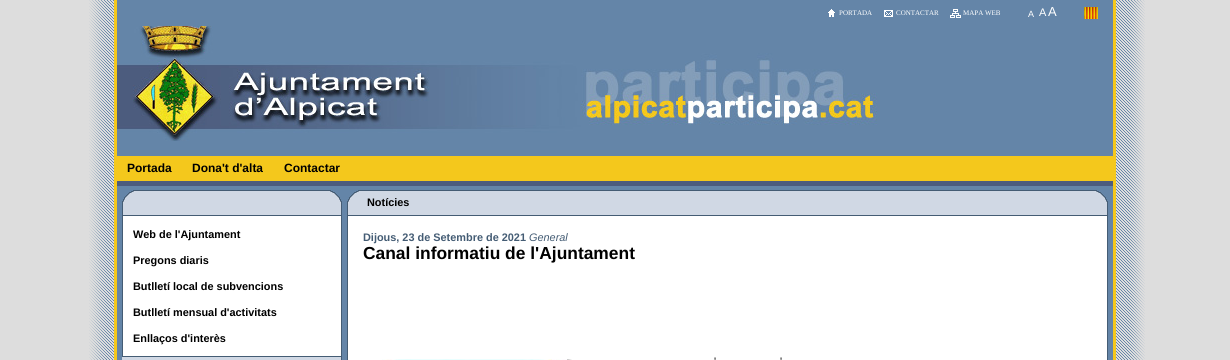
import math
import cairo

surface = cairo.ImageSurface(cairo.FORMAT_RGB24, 1230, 360)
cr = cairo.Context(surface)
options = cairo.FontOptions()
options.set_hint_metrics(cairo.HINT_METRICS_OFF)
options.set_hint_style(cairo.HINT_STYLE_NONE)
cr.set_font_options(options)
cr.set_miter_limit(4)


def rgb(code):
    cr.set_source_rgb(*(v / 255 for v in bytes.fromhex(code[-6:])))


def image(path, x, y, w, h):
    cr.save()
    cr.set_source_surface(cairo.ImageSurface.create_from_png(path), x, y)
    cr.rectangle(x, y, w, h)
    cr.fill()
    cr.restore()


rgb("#dddddd")
cr.paint()
image("img/1.png", 89, 0, 1056, 360)
image("img/2.png", 117, 26, 760, 115)
image("img/3.png", 828, 9, 7, 8)
image("img/4.png", 884, 10, 9, 7)
image("img/5.png", 950, 9, 11, 9)
image("img/6.png", 1084, 7, 14, 12)
rgb("#f4c81c")
cr.rectangle(117, 156, 996, 25)
cr.fill()
rgb("#4c5c7e")
cr.rectangle(117, 181, 996, 5)
cr.fill()
image("img/7.png", 122, 190, 208, 25)
rgb("#445c74")
cr.rectangle(122, 215, 220, 1)
cr.fill()
image("img/8.png", 330, 190, 12, 25)
for x, y, w, h, color in [
    (123, 216, 218, 140, "#ffffff"),
    (341, 216, 1, 141, "#445c74"),
    (122, 356, 220, 1, "#445c74"),
    (122, 216, 1, 141, "#445c74"),
    (122, 357, 220, 3, "#d0d8e4"),
    (341, 357, 1, 3, "#445c74"),
]:
    rgb(color)
    cr.rectangle(x, y, w, h)
    cr.fill()
image("img/9.png", 347, 190, 749, 25)
cr.rectangle(347, 215, 761, 1)
cr.fill()
image("img/8.png", 1096, 190, 12, 25)
for x, y, w, h, color in [
    (348, 216, 759, 144, "#ffffff"),
    (1107, 216, 1, 144, "#445c74"),
    (347, 216, 1, 144, "#445c74"),
]:
    rgb(color)
    cr.rectangle(x, y, w, h)
    cr.fill()
image("img/10.png", 382, 359, 190, 1)
cr.select_font_face("Liberation Serif")
cr.set_font_size(7)
rgb("#ffffff")
for x, y, s in [
    (839, 15, "PORTADA"),
    (896, 15, "CONTACTAR"),
    (963, 15, "MAPA WEB"),
]:
    cr.move_to(x, y)
    cr.show_text(s)
cr.select_font_face("Liberation Sans")
cr.set_font_size(9)
cr.move_to(1028, 17)
cr.show_text("A")
cr.set_font_size(11)
cr.move_to(1039, 16)
cr.show_text("A")
cr.set_font_size(13)
cr.move_to(1048, 16)
cr.show_text("A")
cr.select_font_face("Liberation Sans", cairo.FONT_SLANT_NORMAL, cairo.FONT_WEIGHT_BOLD)
cr.set_font_size(12)
rgb("#000000")
for x, y, s in [
    (127, 172, "Portada"),
    (192, 172, "Dona't d'alta"),
    (284, 172, "Contactar"),
]:
    cr.move_to(x, y)
    cr.show_text(s)
cr.set_font_size(10.9)
for x, y, s in [
    (133, 238, "Web de l'Ajuntament"),
    (133, 264, "Pregons diaris"),
    (133, 290, "Butlletí local de subvencions"),
    (133, 316, "Butlletí mensual d'activitats"),
    (133, 342, "Enllaços d'interès"),
    (367, 206, "Notícies"),
]:
    cr.move_to(x, y)
    cr.show_text(s)
rgb("#445c74")
cr.move_to(363, 241)
cr.show_text("Dijous, 23 de Setembre de 2021")
cr.select_font_face("Liberation Sans", cairo.FONT_SLANT_ITALIC)
cr.move_to(529, 241)
cr.show_text("General")
cr.select_font_face("Liberation Sans", cairo.FONT_SLANT_NORMAL, cairo.FONT_WEIGHT_BOLD)
cr.set_font_size(17.4)
rgb("#000000")
cr.move_to(363, 259)
cr.show_text("Canal informatiu de l'Ajuntament")
cr.select_font_face("Liberation Sans")
cr.set_font_size(10.9)
cr.move_to(714, 365)
cr.show_text("'")
cr.move_to(780, 365)
cr.show_text("'")
surface.write_to_png("page.png")
